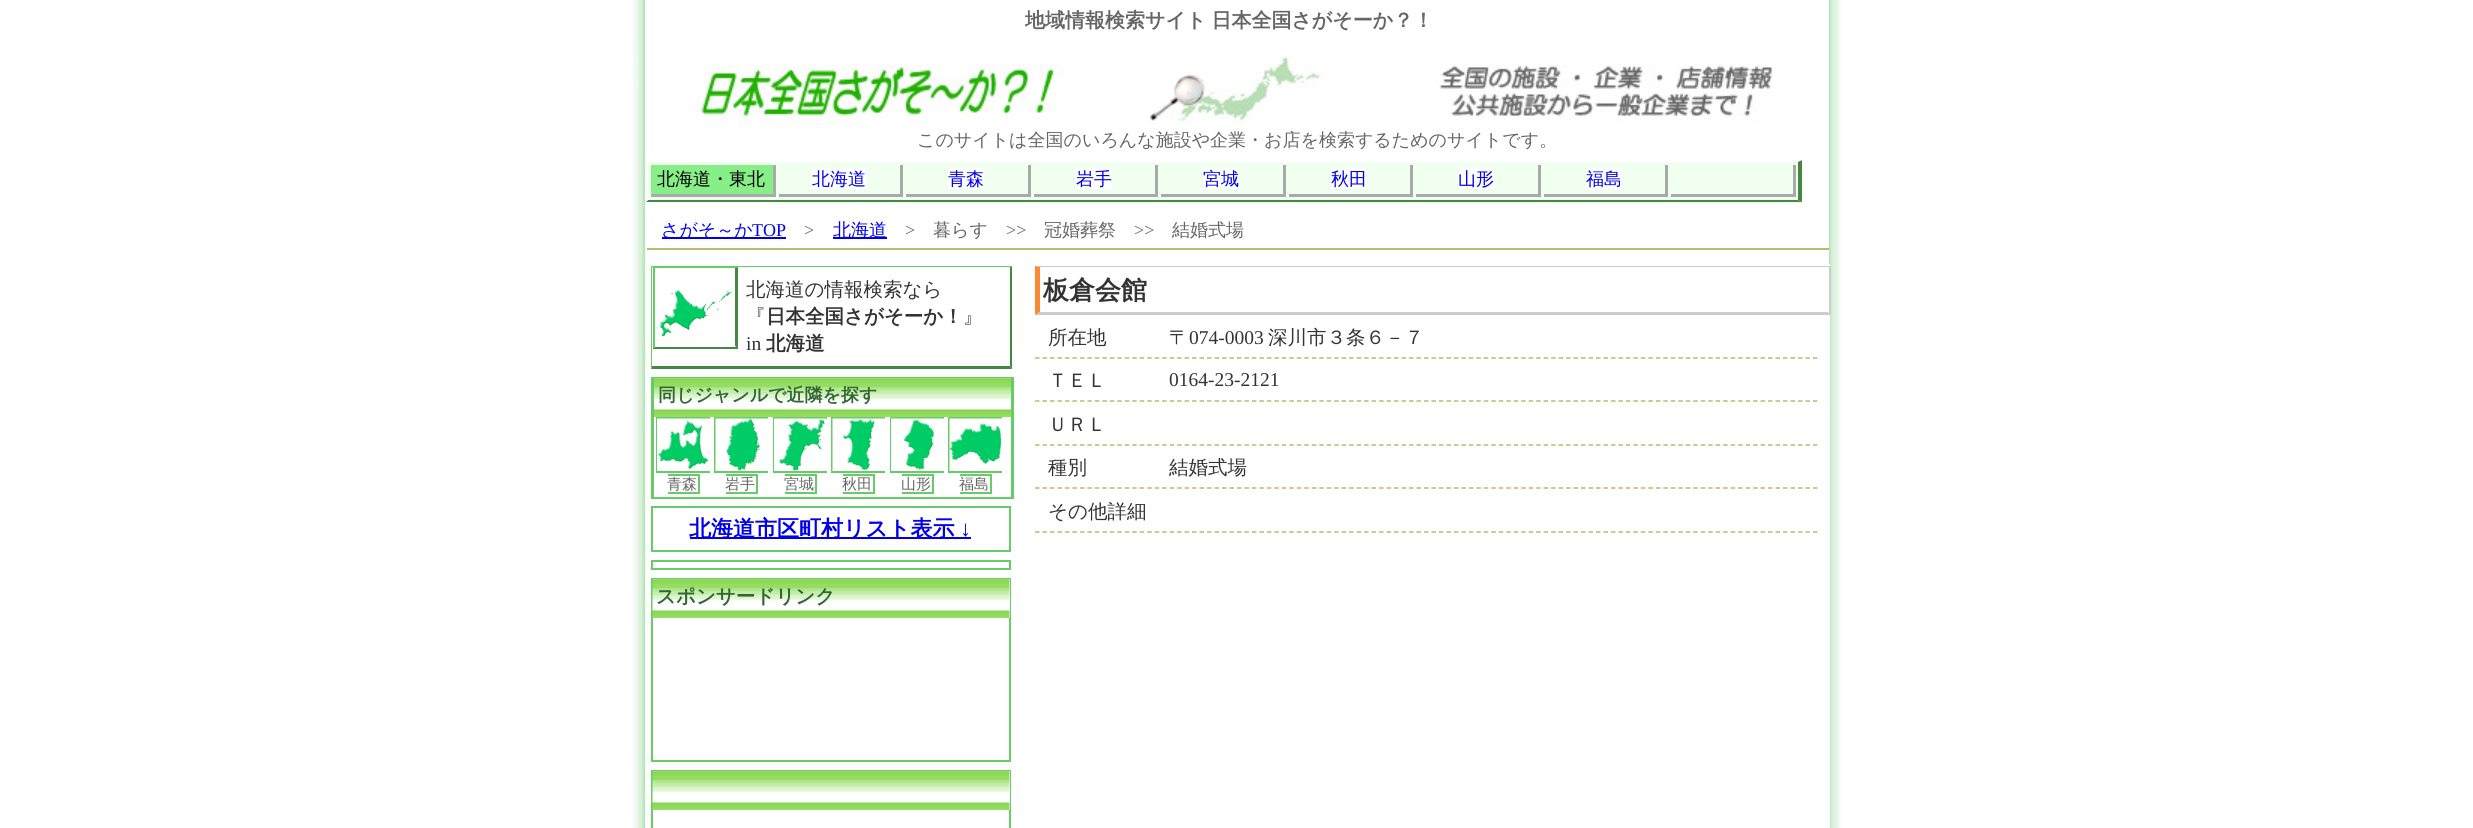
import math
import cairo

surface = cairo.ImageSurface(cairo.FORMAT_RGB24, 2473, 828)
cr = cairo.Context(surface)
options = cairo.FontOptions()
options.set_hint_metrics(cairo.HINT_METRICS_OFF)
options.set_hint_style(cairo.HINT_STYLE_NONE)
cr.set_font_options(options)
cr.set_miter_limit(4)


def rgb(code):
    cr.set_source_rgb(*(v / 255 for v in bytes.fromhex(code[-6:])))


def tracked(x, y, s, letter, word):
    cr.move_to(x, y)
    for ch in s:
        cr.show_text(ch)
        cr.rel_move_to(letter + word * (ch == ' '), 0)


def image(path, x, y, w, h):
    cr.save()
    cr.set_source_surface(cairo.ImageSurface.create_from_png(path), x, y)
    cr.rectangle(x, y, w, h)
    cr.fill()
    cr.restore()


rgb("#ffffff")
cr.paint()
image("img/1.png", 633, 0, 1208, 828)
rgb("#ffffff")
cr.rectangle(1828, 0, 1, 828)
cr.fill()
image("img/2.png", 692, 53, 1080, 72)
rgb("#f0fff0")
cr.rectangle(647, 161, 1155, 42)
cr.fill()
rgb("#ffffff")
cr.new_path()
cr.move_to(646, 160)
cr.line_to(1802, 160)
cr.line_to(1798, 162)
cr.line_to(648, 162)
cr.close_path()
cr.fill()
rgb("#448844")
cr.new_path()
cr.move_to(1802, 160)
cr.line_to(1802, 202)
cr.line_to(1798, 200)
cr.line_to(1798, 162)
cr.close_path()
cr.fill()
cr.new_path()
cr.move_to(1802, 202)
cr.line_to(646, 202)
cr.line_to(648, 200)
cr.line_to(1798, 200)
cr.close_path()
cr.fill()
rgb("#ffffff")
cr.new_path()
cr.move_to(646, 202)
cr.line_to(646, 160)
cr.line_to(648, 162)
cr.line_to(648, 200)
cr.close_path()
cr.fill()
for x, y, w, h, color in [
    (651, 165, 122, 29, "#88ee88"),
    (773, 165, 3, 32, "#aaaaaa"),
    (651, 194, 125, 3, "#aaaaaa"),
    (900, 165, 3, 32, "#aaaaaa"),
    (779, 194, 124, 3, "#aaaaaa"),
    (812, 168, 54, 21, "#ffffff"),
    (1028, 165, 3, 32, "#aaaaaa"),
    (906, 194, 125, 3, "#aaaaaa"),
    (948, 168, 36, 21, "#ffffff"),
    (1155, 165, 3, 32, "#aaaaaa"),
    (1034, 194, 124, 3, "#aaaaaa"),
    (1076, 168, 36, 21, "#ffffff"),
    (1283, 165, 3, 32, "#aaaaaa"),
    (1161, 194, 125, 3, "#aaaaaa"),
    (1203, 168, 36, 21, "#ffffff"),
    (1410, 165, 3, 32, "#aaaaaa"),
    (1289, 194, 124, 3, "#aaaaaa"),
    (1331, 168, 36, 21, "#ffffff"),
    (1538, 165, 3, 32, "#aaaaaa"),
    (1416, 194, 125, 3, "#aaaaaa"),
    (1458, 168, 36, 21, "#ffffff"),
    (1665, 165, 3, 32, "#aaaaaa"),
    (1544, 194, 124, 3, "#aaaaaa"),
    (1586, 168, 36, 21, "#ffffff"),
    (1793, 165, 3, 32, "#aaaaaa"),
    (1671, 194, 125, 3, "#aaaaaa"),
    (647, 248, 1182, 2, "#bdb971"),
    (662, 237, 124, 2, "#0000ee"),
    (833, 237, 54, 2, "#0000ee"),
]:
    rgb(color)
    cr.rectangle(x, y, w, h)
    cr.fill()
rgb("#66cc66")
cr.new_path()
cr.move_to(651, 266)
cr.line_to(1012, 266)
cr.line_to(1010, 267)
cr.line_to(652, 267)
cr.close_path()
cr.fill()
rgb("#448844")
cr.new_path()
cr.move_to(1012, 266)
cr.line_to(1012, 369)
cr.line_to(1010, 366)
cr.line_to(1010, 267)
cr.close_path()
cr.fill()
cr.new_path()
cr.move_to(1012, 369)
cr.line_to(651, 369)
cr.line_to(652, 366)
cr.line_to(1010, 366)
cr.close_path()
cr.fill()
rgb("#66cc66")
cr.new_path()
cr.move_to(651, 369)
cr.line_to(651, 266)
cr.line_to(652, 267)
cr.line_to(652, 366)
cr.close_path()
cr.fill()
cr.new_path()
cr.move_to(652, 267)
cr.line_to(738, 267)
cr.line_to(735, 268)
cr.line_to(654, 268)
cr.close_path()
cr.fill()
rgb("#448844")
cr.new_path()
cr.move_to(738, 267)
cr.line_to(738, 348)
cr.line_to(735, 346)
cr.line_to(735, 268)
cr.close_path()
cr.fill()
cr.rectangle(653, 347, 85, 2)
cr.fill()
rgb("#66cc66")
cr.rectangle(653, 267, 2, 81)
cr.fill()
image("img/3.png", 657, 289, 75, 48)
for x, y, w, h, color in [
    (651, 377, 363, 1, "#66cc66"),
    (1011, 377, 3, 121, "#66cc66"),
    (651, 497, 363, 2, "#66cc66"),
    (651, 377, 3, 121, "#66cc66"),
]:
    rgb(color)
    cr.rectangle(x, y, w, h)
    cr.fill()
image("img/4.png", 654, 378, 357, 39)
for x, y, w, h, color in [
    (656, 417, 54, 2, "#66cc66"),
    (656, 471, 54, 2, "#66cc66"),
    (656, 417, 2, 56, "#66cc66"),
]:
    rgb(color)
    cr.rectangle(x, y, w, h)
    cr.fill()
image("img/5.png", 657, 418, 53, 53)
for x, y, w, h, color in [
    (668, 474, 31, 2, "#66cc66"),
    (698, 474, 2, 20, "#66cc66"),
    (668, 492, 31, 2, "#66cc66"),
    (714, 417, 54, 2, "#66cc66"),
    (714, 471, 54, 2, "#66cc66"),
    (714, 417, 2, 56, "#66cc66"),
]:
    rgb(color)
    cr.rectangle(x, y, w, h)
    cr.fill()
image("img/6.png", 715, 418, 53, 53)
for x, y, w, h, color in [
    (726, 474, 32, 2, "#66cc66"),
    (756, 474, 2, 20, "#66cc66"),
    (726, 492, 32, 2, "#66cc66"),
    (773, 417, 54, 2, "#66cc66"),
    (773, 471, 54, 2, "#66cc66"),
    (773, 417, 2, 56, "#66cc66"),
]:
    rgb(color)
    cr.rectangle(x, y, w, h)
    cr.fill()
image("img/7.png", 774, 418, 53, 53)
for x, y, w, h, color in [
    (785, 474, 31, 2, "#66cc66"),
    (815, 474, 2, 20, "#66cc66"),
    (785, 492, 31, 2, "#66cc66"),
    (831, 417, 54, 2, "#66cc66"),
    (831, 471, 54, 2, "#66cc66"),
    (831, 417, 2, 56, "#66cc66"),
]:
    rgb(color)
    cr.rectangle(x, y, w, h)
    cr.fill()
image("img/8.png", 832, 418, 53, 53)
for x, y, w, h, color in [
    (843, 474, 32, 2, "#66cc66"),
    (873, 474, 2, 20, "#66cc66"),
    (843, 492, 32, 2, "#66cc66"),
    (890, 417, 54, 2, "#66cc66"),
    (890, 471, 54, 2, "#66cc66"),
    (890, 417, 2, 56, "#66cc66"),
]:
    rgb(color)
    cr.rectangle(x, y, w, h)
    cr.fill()
image("img/9.png", 891, 418, 53, 53)
for x, y, w, h, color in [
    (902, 474, 31, 2, "#66cc66"),
    (932, 474, 2, 20, "#66cc66"),
    (902, 492, 31, 2, "#66cc66"),
    (948, 417, 54, 2, "#66cc66"),
    (948, 471, 54, 2, "#66cc66"),
    (948, 417, 2, 56, "#66cc66"),
]:
    rgb(color)
    cr.rectangle(x, y, w, h)
    cr.fill()
image("img/10.png", 949, 418, 53, 53)
for x, y, w, h, color in [
    (960, 474, 32, 2, "#66cc66"),
    (990, 474, 2, 20, "#66cc66"),
    (960, 492, 32, 2, "#66cc66"),
]:
    rgb(color)
    cr.rectangle(x, y, w, h)
    cr.fill()
cr.rectangle(652, 507, 358, 44)
cr.stroke()
rgb("#0000ee")
cr.rectangle(690, 537, 281, 2)
cr.fill()
cr.rectangle(652, 561, 358, 8)
rgb("#66cc66")
cr.stroke()
cr.rectangle(652, 579, 358, 182)
cr.stroke()
rgb("#ffffff")
cr.rectangle(1009, 579, 1, 39)
cr.fill()
image("img/11.png", 652, 579, 358, 39)
cr.rectangle(652, 771, 358, 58)
rgb("#66cc66")
cr.stroke()
rgb("#ffffff")
cr.rectangle(1009, 771, 1, 39)
cr.fill()
image("img/11.png", 652, 771, 358, 39)
cr.rectangle(1829, 264, 1, 564)
cr.fill()
rgb("#cccccc")
cr.new_path()
cr.move_to(1035, 266)
cr.line_to(1830, 266)
cr.line_to(1828, 267)
cr.line_to(1040, 267)
cr.close_path()
cr.fill()
cr.rectangle(1829, 266, 2, 49)
cr.fill()
cr.new_path()
cr.move_to(1830, 315)
cr.line_to(1035, 315)
cr.line_to(1040, 312)
cr.line_to(1828, 312)
cr.close_path()
cr.fill()
rgb("#ff8833")
cr.new_path()
cr.move_to(1035, 315)
cr.line_to(1035, 266)
cr.line_to(1040, 267)
cr.line_to(1040, 312)
cr.close_path()
cr.fill()
cr.new_path()
cr.move_to(1035, 358)
cr.line_to(1818, 358)
rgb("#bdb971")
cr.set_line_width(1.5)
cr.set_dash([4.5, 2.98])
cr.stroke()
cr.new_path()
cr.move_to(1035, 401)
cr.line_to(1818, 401)
cr.stroke()
cr.new_path()
cr.move_to(1035, 445)
cr.line_to(1818, 445)
cr.stroke()
cr.new_path()
cr.move_to(1035, 488)
cr.line_to(1818, 488)
cr.stroke()
cr.new_path()
cr.move_to(1035, 532)
cr.line_to(1818, 532)
cr.stroke()
cr.select_font_face("WenQuanYi Zen Hei", cairo.FONT_SLANT_NORMAL, cairo.FONT_WEIGHT_BOLD)
cr.set_font_size(20)
rgb("#666666")
tracked(1025, 27, "地域情報検索サイト 日本全国さがそーか？！", 0, -1)
cr.select_font_face("WenQuanYi Zen Hei Medium")
cr.set_font_size(18)
cr.move_to(917, 146)
cr.show_text("このサイトは全国のいろんな施設や企業・お店を検索するためのサイトです。")
rgb("#000000")
cr.move_to(657, 185)
cr.show_text("北海道・東北")
rgb("#0000ee")
for x, y, s in [
    (812, 185, "北海道"),
    (948, 185, "青森"),
    (1076, 185, "岩手"),
    (1203, 185, "宮城"),
    (1331, 185, "秋田"),
    (1458, 185, "山形"),
    (1586, 185, "福島"),
    (661, 236, "さがそ～か"),
]:
    cr.move_to(x, y)
    cr.show_text(s)
cr.select_font_face("Liberation Serif")
cr.move_to(752, 236)
cr.show_text("TOP")
rgb("#666666")
cr.move_to(804, 236)
cr.show_text(">")
cr.select_font_face("WenQuanYi Zen Hei Medium")
rgb("#0000ee")
cr.move_to(833, 236)
cr.show_text("北海道")
cr.select_font_face("Liberation Serif")
rgb("#666666")
cr.move_to(905, 236)
cr.show_text(">")
cr.select_font_face("WenQuanYi Zen Hei Medium")
cr.move_to(933, 236)
cr.show_text("暮らす")
cr.select_font_face("Liberation Serif")
cr.move_to(1006, 236)
cr.show_text(">>")
cr.select_font_face("WenQuanYi Zen Hei Medium")
cr.move_to(1044, 236)
cr.show_text("冠婚葬祭")
cr.select_font_face("Liberation Serif")
cr.move_to(1134, 236)
cr.show_text(">>")
cr.select_font_face("WenQuanYi Zen Hei Medium")
cr.move_to(1172, 236)
cr.show_text("結婚式場")
cr.set_font_size(19.5)
rgb("#333333")
cr.move_to(746, 296)
cr.show_text("北海道の情報検索なら")
cr.move_to(746, 323)
cr.show_text("『")
cr.select_font_face("WenQuanYi Zen Hei", cairo.FONT_SLANT_NORMAL, cairo.FONT_WEIGHT_BOLD)
cr.move_to(766, 323)
cr.show_text("日本全国さがそーか！")
cr.select_font_face("WenQuanYi Zen Hei Medium")
cr.move_to(963, 323)
cr.show_text("』")
cr.select_font_face("Liberation Serif")
cr.move_to(746, 350)
cr.show_text("in")
cr.select_font_face("WenQuanYi Zen Hei", cairo.FONT_SLANT_NORMAL, cairo.FONT_WEIGHT_BOLD)
cr.move_to(766, 350)
cr.show_text("北海道")
cr.set_font_size(18)
rgb("#336633")
cr.move_to(658, 401)
cr.show_text("同じジャンルで近隣を探す")
cr.select_font_face("WenQuanYi Zen Hei Medium")
cr.set_font_size(15)
rgb("#666666")
for x, y, s in [
    (667, 489, "青森"),
    (725, 489, "岩手"),
    (784, 489, "宮城"),
    (842, 489, "秋田"),
    (901, 489, "山形"),
    (959, 489, "福島"),
]:
    cr.move_to(x, y)
    cr.show_text(s)
cr.select_font_face("WenQuanYi Zen Hei", cairo.FONT_SLANT_NORMAL, cairo.FONT_WEIGHT_BOLD)
cr.set_font_size(22)
rgb("#0000ee")
cr.move_to(689, 536)
cr.show_text("北海道市区町村リスト表示")
cr.select_font_face("Liberation Serif", cairo.FONT_SLANT_NORMAL, cairo.FONT_WEIGHT_BOLD)
cr.move_to(960, 536)
cr.show_text("↓")
cr.select_font_face("WenQuanYi Zen Hei", cairo.FONT_SLANT_NORMAL, cairo.FONT_WEIGHT_BOLD)
cr.set_font_size(19.5)
rgb("#336633")
cr.move_to(656, 603)
cr.show_text("スポンサードリンク")
cr.set_font_size(26)
rgb("#333333")
cr.move_to(1043, 299)
cr.show_text("板倉会館")
cr.select_font_face("WenQuanYi Zen Hei Medium")
cr.set_font_size(19.5)
cr.move_to(1048, 344)
cr.show_text("所在地")
cr.move_to(1169, 344)
cr.show_text("〒")
cr.select_font_face("Liberation Serif")
cr.move_to(1189, 344)
cr.show_text("074-0003")
cr.select_font_face("WenQuanYi Zen Hei Medium")
cr.move_to(1268, 344)
cr.show_text("深川市３条６－７")
cr.move_to(1048, 387)
cr.show_text("ＴＥＬ")
cr.select_font_face("Liberation Serif")
cr.move_to(1169, 386)
cr.show_text("0164-23-2121")
cr.select_font_face("WenQuanYi Zen Hei Medium")
for x, y, s in [
    (1048, 431, "ＵＲＬ"),
    (1048, 474, "種別"),
    (1169, 474, "結婚式場"),
    (1048, 518, "その他詳細"),
]:
    cr.move_to(x, y)
    cr.show_text(s)
surface.write_to_png("page.png")
